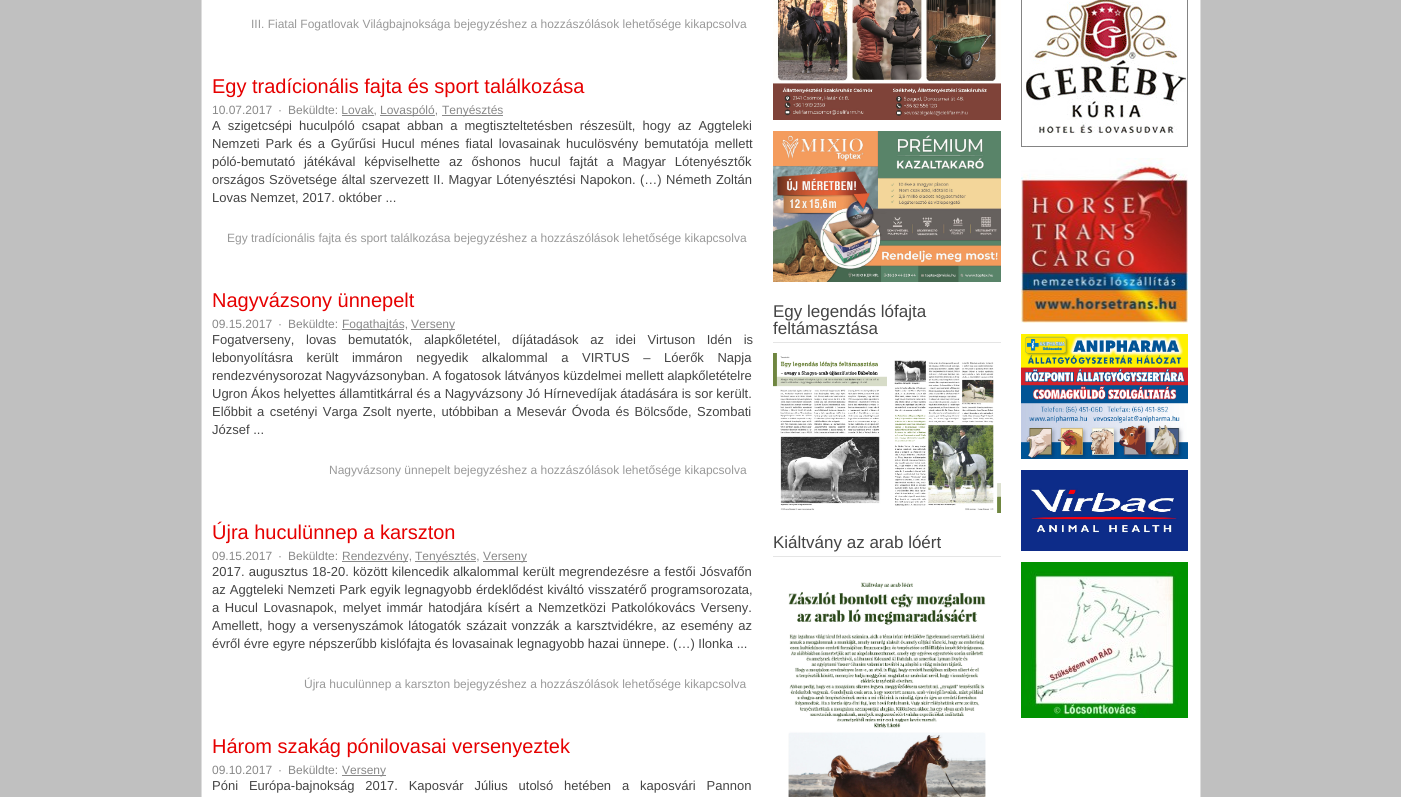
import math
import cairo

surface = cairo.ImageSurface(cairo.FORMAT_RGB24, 1401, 797)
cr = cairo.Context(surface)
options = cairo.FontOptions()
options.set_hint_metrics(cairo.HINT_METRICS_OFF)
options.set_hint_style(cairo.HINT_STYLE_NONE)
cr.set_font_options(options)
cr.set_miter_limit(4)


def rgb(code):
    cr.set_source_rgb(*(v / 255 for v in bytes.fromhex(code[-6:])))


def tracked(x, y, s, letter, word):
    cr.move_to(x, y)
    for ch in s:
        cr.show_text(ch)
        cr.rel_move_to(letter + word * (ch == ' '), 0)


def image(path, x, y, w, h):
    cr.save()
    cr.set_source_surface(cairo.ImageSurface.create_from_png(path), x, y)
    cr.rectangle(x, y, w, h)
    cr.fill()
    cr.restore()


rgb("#c0c0c0")
cr.paint()
rgb("#ffffff")
cr.rectangle(202, 0, 998, 797)
cr.fill()
rgb("#dddddd")
cr.new_path()
cr.move_to(1201, -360)
cr.line_to(1201, 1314)
cr.line_to(1200, 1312)
cr.line_to(1200, -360)
cr.close_path()
cr.fill()
cr.new_path()
cr.move_to(201, 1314)
cr.line_to(201, -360)
cr.line_to(202, -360)
cr.line_to(202, 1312)
cr.close_path()
cr.fill()
for x, y, w, h, color in [
    (380, 115, 55, 1, "#888888"),
    (442, 115, 61, 1, "#888888"),
    (342, 115, 32, 1, "#888888"),
    (342, 329, 62, 1, "#888888"),
    (411, 329, 44, 1, "#888888"),
    (342, 561, 66, 1, "#888888"),
    (415, 561, 61, 1, "#888888"),
    (483, 561, 44, 1, "#888888"),
    (342, 775, 44, 1, "#888888"),
]:
    rgb(color)
    cr.rectangle(x, y, w, h)
    cr.fill()
image("img/1.png", 773, 0, 228, 120)
image("img/2.png", 773, 131, 228, 151)
rgb("#e5e5e5")
cr.rectangle(773, 342, 228, 1)
cr.fill()
image("img/3.png", 773, 353, 228, 160)
cr.rectangle(773, 556, 228, 1)
cr.fill()
image("img/4.png", 788, 582, 198, 215)
image("img/5.png", 1021, 0, 167, 147)
image("img/6.png", 1021, 158, 167, 165)
image("img/7.png", 1021, 334, 167, 125)
image("img/8.png", 1021, 470, 167, 81)
image("img/9.png", 1021, 562, 167, 156)
cr.select_font_face("Liberation Sans")
cr.set_font_size(12)
rgb("#999999")
cr.move_to(251, 28)
cr.show_text("III. Fiatal Fogatlovak Világbajnoksága bejegyzéshez a hozzászólások lehetősége kikapcsolva")
cr.set_font_size(20)
rgb("#e60000")
cr.move_to(212, 93)
cr.show_text("Egy tradícionális fajta és sport találkozása")
cr.set_font_size(12)
rgb("#888888")
for x, y, s in [
    (212, 114, "10.07.2017"),
    (278, 114, "·"),
    (288, 114, "Beküldte: Lovak,"),
    (380, 114, "Lovaspóló,"),
    (442, 114, "Tenyésztés"),
]:
    cr.move_to(x, y)
    cr.show_text(s)
cr.set_font_size(13)
rgb("#444444")
tracked(212, 130, "A szigetcsépi huculpóló csapat abban a megtiszteltetésben részesült, hogy az Aggteleki", 0, 3.4)
tracked(212, 148, "Nemzeti Park és a Gyűrűsi Hucul ménes fiatal lovasainak huculösvény bemutatója mellett", 0, 2.25)
tracked(212, 166, "póló-bemutató játékával képviselhette az őshonos hucul fajtát a Magyar Lótenyésztők", 0, 5.25)
tracked(212, 184, "országos Szövetsége által szervezett II. Magyar Lótenyésztési Napokon. (…) Németh Zoltán", 0, 0.75)
cr.move_to(212, 202)
cr.show_text("Lovas Nemzet, 2017. október ...")
cr.set_font_size(12)
rgb("#999999")
cr.move_to(227, 242)
cr.show_text("Egy tradícionális fajta és sport találkozása bejegyzéshez a hozzászólások lehetősége kikapcsolva")
cr.set_font_size(20)
rgb("#e60000")
cr.move_to(212, 307)
cr.show_text("Nagyvázsony ünnepelt")
cr.set_font_size(12)
rgb("#888888")
for x, y, s in [
    (212, 328, "09.15.2017"),
    (278, 328, "·"),
    (288, 328, "Beküldte:"),
    (342, 328, "Fogathajtás,"),
    (411, 328, "Verseny"),
]:
    cr.move_to(x, y)
    cr.show_text(s)
cr.set_font_size(13)
rgb("#444444")
tracked(212, 344, "Fogatverseny, lovas bemutatók, alapkőletétel, díjátadások az idei Virtuson Idén is", 0, 8)
tracked(212, 362, "lebonyolításra került immáron negyedik alkalommal a VIRTUS – Lóerők Napja", 0, 10)
cr.move_to(212, 380)
cr.show_text("rendezvénysorozat Nagyvázsonyban. A fogatosok látványos küzdelmei mellett alapkőletételre")
cr.move_to(212, 398)
cr.show_text("Ugron Ákos helyettes államtitkárral és a Nagyvázsony Jó Hírnevedíjak átadására is sor került.")
tracked(212, 416, "Előbbit a csetényi Varga Zsolt nyerte, utóbbiban a Mesevár Óvoda és Bölcsőde, Szombati", 0, 1.75)
cr.move_to(212, 434)
cr.show_text("József ...")
cr.set_font_size(12)
rgb("#999999")
cr.move_to(329, 474)
cr.show_text("Nagyvázsony ünnepelt bejegyzéshez a hozzászólások lehetősége kikapcsolva")
cr.set_font_size(20)
rgb("#e60000")
cr.move_to(212, 539)
cr.show_text("Újra huculünnep a karszton")
cr.set_font_size(12)
rgb("#888888")
for x, y, s in [
    (212, 560, "09.15.2017"),
    (278, 560, "·"),
    (288, 560, "Beküldte:"),
    (342, 560, "Rendezvény,"),
    (415, 560, "Tenyésztés,"),
    (483, 560, "Verseny"),
]:
    cr.move_to(x, y)
    cr.show_text(s)
cr.set_font_size(13)
rgb("#444444")
tracked(212, 576, "2017. augusztus 18-20. között kilencedik alkalommal került megrendezésre a festői Jósvafőn", 0, 0.5)
tracked(212, 594, "az Aggteleki Nemzeti Park egyik legnagyobb érdeklődést kiváltó visszatérő programsorozata,", 0, 0.5)
tracked(212, 612, "a Hucul Lovasnapok, melyet immár hatodjára kísért a Nemzetközi Patkolókovács Verseny.", 0, 1.9)
tracked(212, 630, "Amellett, hogy a versenyszámok látogatók százait vonzzák a karsztvidékre, az esemény az", 0, 1.4)
cr.move_to(212, 648)
cr.show_text("évről évre egyre népszerűbb kislófajta és lovasainak legnagyobb hazai ünnepe. (…) Ilonka ...")
cr.set_font_size(12)
rgb("#999999")
cr.move_to(304, 688)
cr.show_text("Újra huculünnep a karszton bejegyzéshez a hozzászólások lehetősége kikapcsolva")
cr.set_font_size(20)
rgb("#e60000")
cr.move_to(212, 753)
cr.show_text("Három szakág pónilovasai versenyeztek")
cr.set_font_size(12)
rgb("#888888")
for x, y, s in [
    (212, 774, "09.10.2017"),
    (278, 774, "·"),
    (288, 774, "Beküldte:"),
    (342, 774, "Verseny"),
]:
    cr.move_to(x, y)
    cr.show_text(s)
cr.set_font_size(13)
rgb("#444444")
tracked(212, 790, "Póni Európa-bajnokság 2017. Kaposvár Július utolsó hetében a kaposvári Pannon", 0, 7.25)
cr.set_font_size(17)
for x, y, s in [
    (773, 317, "Egy legendás lófajta"),
    (773, 334, "feltámasztása"),
    (773, 548, "Kiáltvány az arab lóért"),
]:
    cr.move_to(x, y)
    cr.show_text(s)
surface.write_to_png("page.png")
